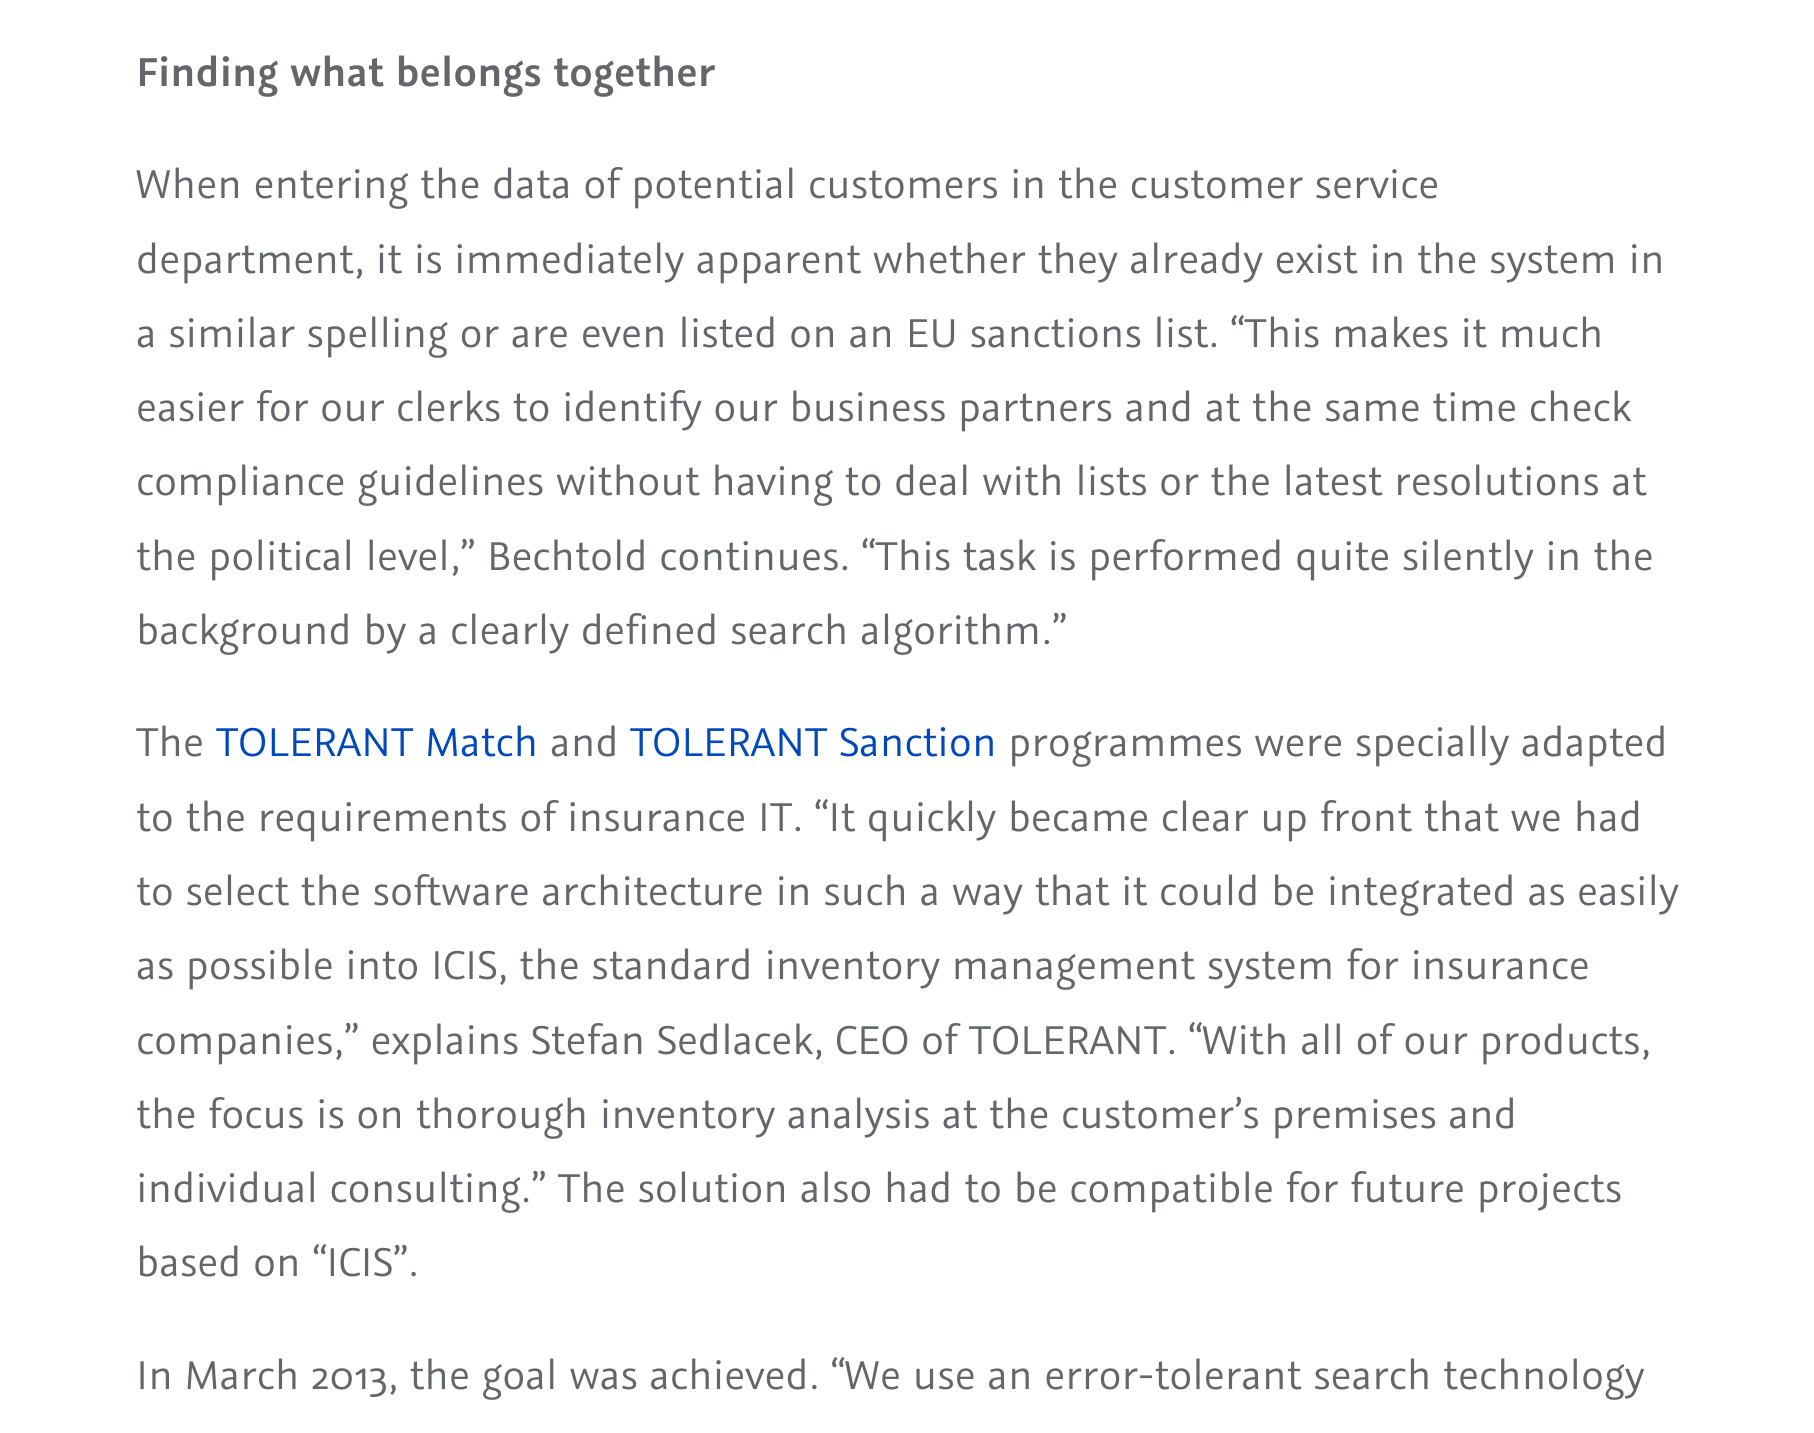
import math
import cairo

surface = cairo.ImageSurface(cairo.FORMAT_RGB24, 1814, 1433)
cr = cairo.Context(surface)
options = cairo.FontOptions()
options.set_hint_metrics(cairo.HINT_METRICS_OFF)
options.set_hint_style(cairo.HINT_STYLE_NONE)
cr.set_font_options(options)
cr.set_miter_limit(4)


def rgb(code):
    cr.set_source_rgb(*(v / 255 for v in bytes.fromhex(code[-6:])))


rgb("#ffffff")
cr.paint()
cr.select_font_face("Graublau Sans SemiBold")
cr.set_font_size(45)
rgb("#63666a")
cr.move_to(136, 86)
cr.show_text("Finding what belongs together")
cr.select_font_face("Graublau Sans")
for x, y, s in [
    (136, 198, "When entering the data of potential customers in the customer service"),
    (136, 273, "department, it is immediately apparent whether they already exist in the system in"),
    (136, 347, "a similar spelling or are even listed on an EU sanctions list. “This makes it much"),
    (136, 421, "easier for our clerks to identify our business partners and at the same time check"),
    (136, 495, "compliance guidelines without having to deal with lists or the latest resolutions at"),
    (136, 570, "the political level,” Bechtold continues. “This task is performed quite silently in the"),
    (136, 644, "background by a clearly defined search algorithm.”"),
    (136, 756, "The"),
]:
    cr.move_to(x, y)
    cr.show_text(s)
rgb("#0048bb")
cr.move_to(216, 756)
cr.show_text("TOLERANT Match")
rgb("#63666a")
cr.move_to(550, 756)
cr.show_text("and")
rgb("#0048bb")
cr.move_to(630, 756)
cr.show_text("TOLERANT Sanction")
rgb("#63666a")
for x, y, s in [
    (1008, 756, "programmes were specially adapted"),
    (136, 831, "to the requirements of insurance IT. “It quickly became clear up front that we had"),
    (136, 905, "to select the software architecture in such a way that it could be integrated as easily"),
    (136, 979, "as possible into ICIS, the standard inventory management system for insurance"),
    (136, 1054, "companies,” explains Stefan Sedlacek, CEO of TOLERANT. “With all of our products,"),
    (136, 1128, "the focus is on thorough inventory analysis at the customer’s premises and"),
    (136, 1202, "individual consulting.” The solution also had to be compatible for future projects"),
    (136, 1276, "based on “ICIS”."),
    (136, 1389, "In March 2013, the goal was achieved. “We use an error-tolerant search technology"),
]:
    cr.move_to(x, y)
    cr.show_text(s)
surface.write_to_png("page.png")
